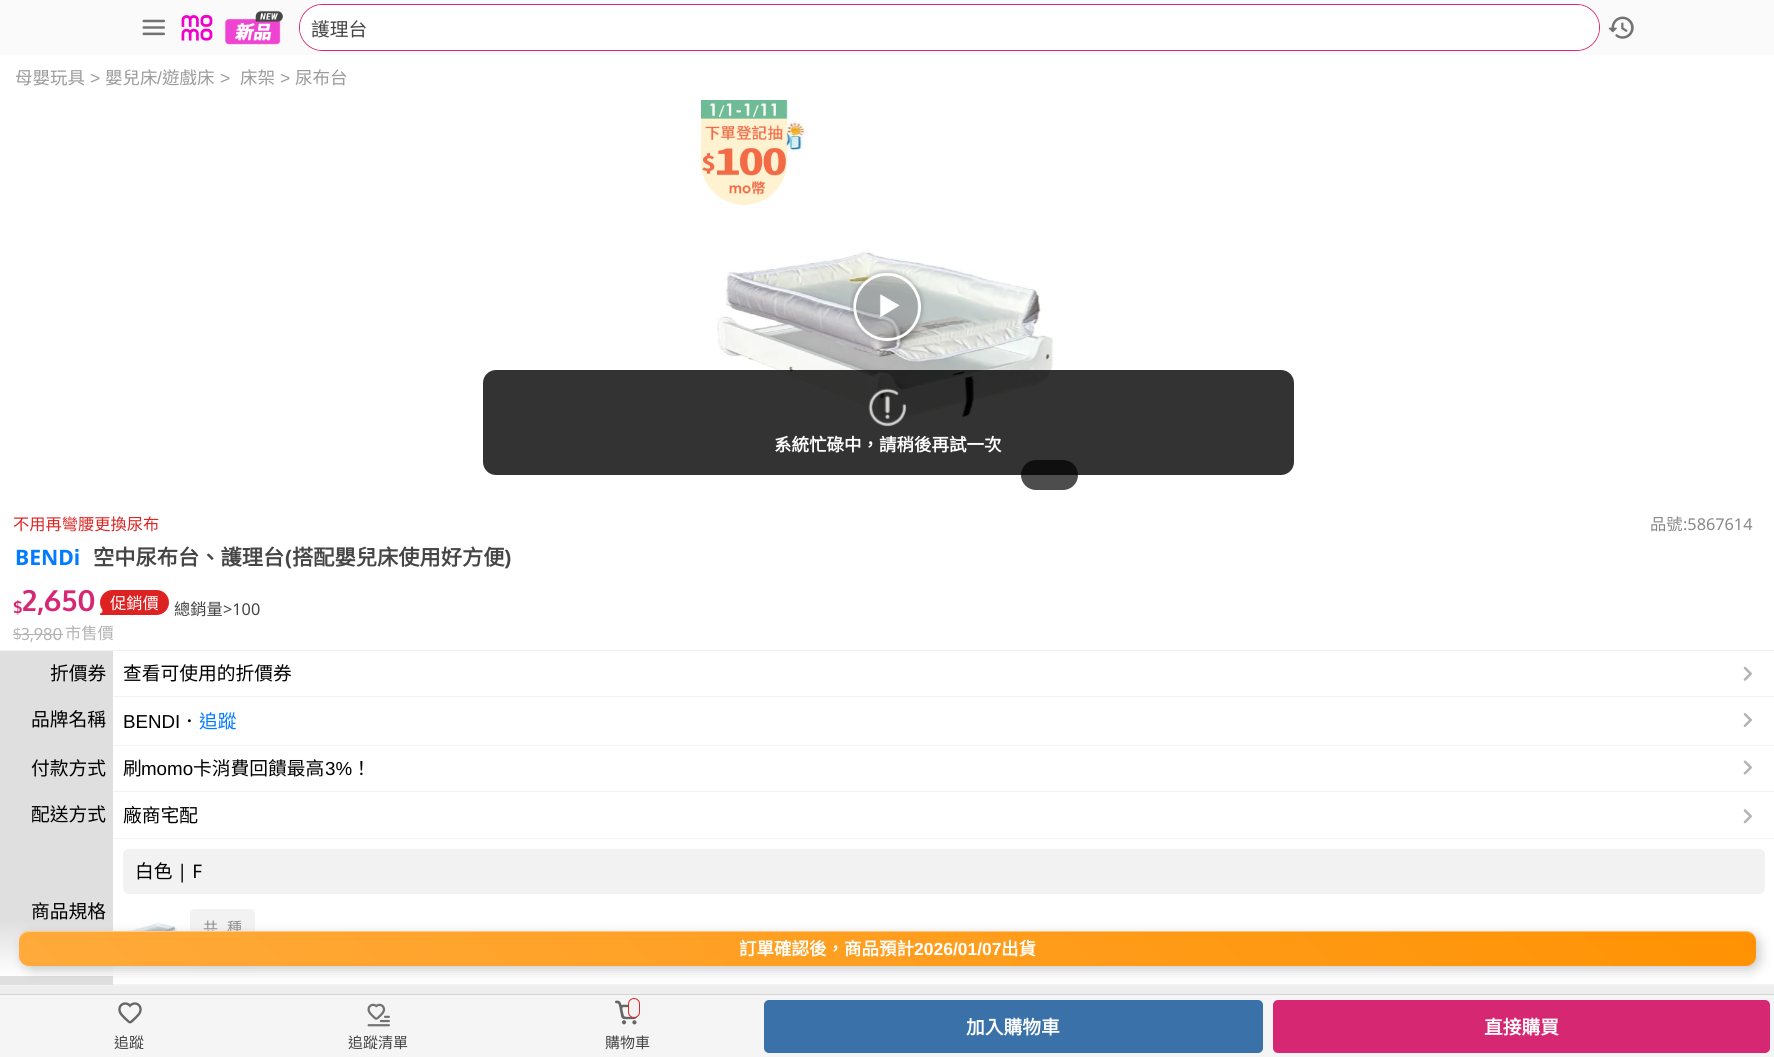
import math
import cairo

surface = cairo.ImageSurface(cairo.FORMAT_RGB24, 1774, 1057)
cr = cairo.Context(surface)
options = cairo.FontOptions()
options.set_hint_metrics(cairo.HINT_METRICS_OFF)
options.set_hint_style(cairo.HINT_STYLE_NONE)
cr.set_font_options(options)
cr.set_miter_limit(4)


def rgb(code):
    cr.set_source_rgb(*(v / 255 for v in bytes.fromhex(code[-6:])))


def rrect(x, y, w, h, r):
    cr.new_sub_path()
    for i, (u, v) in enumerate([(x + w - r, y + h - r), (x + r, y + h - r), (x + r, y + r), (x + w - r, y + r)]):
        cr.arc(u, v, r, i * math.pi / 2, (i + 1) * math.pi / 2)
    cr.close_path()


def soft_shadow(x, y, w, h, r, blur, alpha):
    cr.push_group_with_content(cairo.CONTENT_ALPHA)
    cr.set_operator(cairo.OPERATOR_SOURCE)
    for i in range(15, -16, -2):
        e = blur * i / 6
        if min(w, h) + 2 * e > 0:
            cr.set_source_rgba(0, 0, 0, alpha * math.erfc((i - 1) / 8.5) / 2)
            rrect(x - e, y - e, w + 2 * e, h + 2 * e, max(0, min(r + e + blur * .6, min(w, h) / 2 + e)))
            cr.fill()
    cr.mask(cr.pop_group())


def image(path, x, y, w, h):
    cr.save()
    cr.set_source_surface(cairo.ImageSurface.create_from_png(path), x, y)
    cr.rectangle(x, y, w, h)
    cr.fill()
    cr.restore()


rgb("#eeeeee")
cr.paint()
rgb("#fafafa")
cr.rectangle(0, 0, 1774, 55)
cr.fill()
image("img/1.png", 142, 19, 24, 17)
image("img/2.png", 181, 15, 32, 26)
image("img/3.png", 225, 10, 58, 35)
rrect(299.5, 4.5, 1300, 46, 23)
rgb("#d62872")
cr.set_line_width(1)
cr.stroke()
rgb("#ffffff")
rrect(300, 5, 1299, 45, 22.5)
cr.fill()
rrect(300, 16, 1294, 25, 12.5)
cr.fill()
image("img/4.png", 1608, 16, 26, 23)
cr.rectangle(0, 55, 1774, 929)
cr.fill()
image("img/7.png", 714, 120, 340, 300)
rgb("#4d4d4d")
rrect(1021, 460, 57, 30, 15)
cr.fill()
cr.set_source_rgba(0, 0, 0, 0.8)
rrect(483, 370, 811, 105, 13)
cr.fill()
image("img/5.png", 868, 388, 39, 39)
image("img/6.png", 701, 100, 87, 105)
image("img/8.png", 850, 269, 75, 76)
rgb("#dd2222")
rrect(100, 590, 69, 25, 12.5)
cr.fill()
for x, y, w, h, color in [
    (13, 634, 8, 1, "#b3b3b3"),
    (21, 634, 42, 1, "#b3b3b3"),
    (0, 650, 1774, 1, "#f2f2f2"),
    (0, 985, 1774, 1, "#f2f2f2"),
    (0, 651, 113, 334, "#dfdfdf"),
    (113, 696, 1661, 1, "#f2f2f2"),
]:
    rgb(color)
    cr.rectangle(x, y, w, h)
    cr.fill()
image("img/10.png", 1743, 666, 9, 15)
cr.rectangle(113, 745, 1661, 1)
cr.fill()
image("img/11.png", 1743, 713, 9, 14)
cr.rectangle(113, 791, 1661, 1)
cr.fill()
image("img/12.png", 1743, 760, 9, 15)
cr.rectangle(113, 838, 1661, 1)
cr.fill()
image("img/13.png", 1743, 809, 9, 15)
cr.rectangle(113, 984, 1661, 1)
cr.fill()
rrect(123, 849, 1642, 45, 6)
cr.fill()
image("img/14.png", 127, 922, 50, 9)
rrect(190, 909, 65, 60, 5)
cr.fill()
rgb("#f5f5f5")
cr.rectangle(0, 995, 1774, 62)
cr.fill()
rgb("#d4d4d4")
cr.rectangle(0, 994, 1774, 1)
cr.fill()
rgb("#3a71a9")
rrect(764, 1000, 499, 53, 5)
cr.fill()
rgb("#d62872")
rrect(1273, 1000, 497, 53, 5)
cr.fill()
image("img/15.png", 118, 1002, 24, 22)
image("img/16.png", 367, 1003, 23, 24)
image("img/17.png", 615, 1000, 23, 25)
rgb("#f2f2f2")
rrect(628.5, 998.5, 11, 19, 5.5)
cr.fill_preserve()
rgb("#dd2726")
cr.stroke()
cr.select_font_face("Noto Sans CJK TC")
cr.set_font_size(18.75)
rgb("#454545")
cr.move_to(311, 36)
cr.show_text("護理台")
cr.set_font_size(17.5)
rgb("#9b9b9b")
cr.move_to(15, 84)
cr.show_text("母嬰玩具")
cr.select_font_face("Liberation Sans")
cr.move_to(90, 84)
cr.show_text(">")
cr.select_font_face("Noto Sans CJK TC")
cr.move_to(105, 84)
cr.show_text("嬰兒床")
cr.select_font_face("Liberation Sans")
cr.move_to(157, 84)
cr.show_text("/")
cr.select_font_face("Noto Sans CJK TC")
cr.move_to(162, 84)
cr.show_text("遊戲床")
cr.select_font_face("Liberation Sans")
cr.move_to(220, 84)
cr.show_text(">")
cr.select_font_face("Noto Sans CJK TC")
cr.move_to(240, 84)
cr.show_text("床架")
cr.select_font_face("Liberation Sans")
cr.move_to(280, 84)
cr.show_text(">")
cr.select_font_face("Noto Sans CJK TC")
cr.move_to(295, 84)
cr.show_text("尿布台")
cr.select_font_face("Noto Sans CJK TC", cairo.FONT_SLANT_NORMAL, cairo.FONT_WEIGHT_BOLD)
rgb("#ffffff")
cr.move_to(774, 451)
cr.show_text("系統忙碌中，請稍後再試一次")
cr.select_font_face("Noto Sans CJK TC")
cr.set_font_size(16.25)
rgb("#dd2726")
cr.move_to(13, 530)
cr.show_text("不用再彎腰更換尿布")
rgb("#888888")
cr.move_to(1650, 530)
cr.show_text("品號")
cr.select_font_face("Noto Sans")
cr.move_to(1683, 530)
cr.show_text(":5867614")
cr.select_font_face("Noto Sans", cairo.FONT_SLANT_NORMAL, cairo.FONT_WEIGHT_BOLD)
cr.set_font_size(21.25)
rgb("#027bff")
cr.move_to(15, 565)
cr.show_text("BENDi")
cr.select_font_face("Noto Sans CJK TC", cairo.FONT_SLANT_NORMAL, cairo.FONT_WEIGHT_BOLD)
rgb("#454545")
cr.move_to(93, 565)
cr.show_text("空中尿布台、護理台")
cr.select_font_face("Noto Sans", cairo.FONT_SLANT_NORMAL, cairo.FONT_WEIGHT_BOLD)
cr.move_to(285, 565)
cr.show_text("(")
cr.select_font_face("Noto Sans CJK TC", cairo.FONT_SLANT_NORMAL, cairo.FONT_WEIGHT_BOLD)
cr.move_to(292, 565)
cr.show_text("搭配嬰兒床使用好方便")
cr.select_font_face("Noto Sans", cairo.FONT_SLANT_NORMAL, cairo.FONT_WEIGHT_BOLD)
cr.move_to(504, 565)
cr.show_text(")")
cr.select_font_face("Oxygen", cairo.FONT_SLANT_NORMAL, cairo.FONT_WEIGHT_BOLD)
cr.set_font_size(16.25)
rgb("#d62872")
cr.move_to(13, 613)
cr.show_text("$")
cr.set_font_size(29)
cr.move_to(22, 611)
cr.show_text("2,650")
cr.select_font_face("Noto Sans CJK TC")
cr.set_font_size(16.25)
rgb("#ffffff")
cr.move_to(110, 609)
cr.show_text("促銷價")
image("img/9.png", 100, 610, 12, 5)
rgb("#454545")
cr.move_to(174, 615)
cr.show_text("總銷量")
cr.select_font_face("Noto Sans")
cr.move_to(223, 615)
cr.show_text(">100")
cr.select_font_face("Oxygen")
cr.set_font_size(14)
rgb("#b3b3b3")
cr.move_to(13, 639)
cr.show_text("$")
cr.set_font_size(16.25)
cr.move_to(21, 640)
cr.show_text("3,980")
cr.select_font_face("Noto Sans CJK TC")
cr.move_to(65, 639)
cr.show_text("市售價")
cr.set_font_size(18.75)
rgb("#000000")
for x, y, s in [
    (50, 680, "折價券"),
    (123, 680, "查看可使用的折價券"),
    (31, 726, "品牌名稱"),
]:
    cr.move_to(x, y)
    cr.show_text(s)
cr.select_font_face("Liberation Sans")
cr.move_to(123, 728)
cr.show_text("BENDI")
cr.select_font_face("Noto Sans CJK TC")
cr.move_to(180, 728)
cr.show_text("．")
rgb("#027bff")
cr.move_to(199, 728)
cr.show_text("追蹤")
rgb("#000000")
cr.move_to(31, 775)
cr.show_text("付款方式")
cr.move_to(123, 775)
cr.show_text("刷")
cr.select_font_face("Liberation Sans")
cr.move_to(141, 775)
cr.show_text("momo")
cr.select_font_face("Noto Sans CJK TC")
cr.move_to(193, 775)
cr.show_text("卡消費回饋最高")
cr.select_font_face("Liberation Sans")
cr.move_to(325, 775)
cr.show_text("3%")
cr.select_font_face("Noto Sans CJK TC")
for x, y, s in [
    (352, 775, "！"),
    (31, 821, "配送方式"),
    (123, 822, "廠商宅配"),
    (31, 918, "商品規格"),
    (135, 878, "白色"),
]:
    cr.move_to(x, y)
    cr.show_text(s)
cr.select_font_face("Noto Sans")
cr.move_to(177, 878)
cr.show_text("| F")
cr.select_font_face("Noto Sans CJK TC")
cr.set_font_size(15)
rgb("#888888")
cr.move_to(203, 933)
cr.show_text("共")
cr.move_to(227, 933)
cr.show_text("種")
gradient = cairo.LinearGradient(888, 921, 888, 976)
gradient.add_color_stop_rgba(0, 1, 1, 1, 0)
gradient.add_color_stop_rgba(1, 1, 1, 1, 1)
cr.set_source(gradient)
cr.rectangle(0, 922, 255, 54)
cr.fill()
rgb("#000000")
soft_shadow(23, 935, 1737, 35, 10, 6, 0.2)
gradient = cairo.LinearGradient(444, 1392, 1331, 506)
gradient.add_color_stop_rgba(0, 1, 0.667, 0.231, 1)
gradient.add_color_stop_rgba(1, 1, 0.573, 0.012, 1)
cr.set_source(gradient)
rrect(19, 931, 1737, 35, 10)
cr.fill()
cr.set_source_rgba(1, 1, 1, 0.4)
cr.new_path()
cr.move_to(29, 932)
cr.line_to(1746, 932)
cr.curve_to(1752, 932, 1756, 937, 1756, 942)
cr.curve_to(1756, 936, 1752, 931, 1746, 931)
cr.line_to(29, 931)
cr.curve_to(23, 931, 19, 936, 19, 942)
cr.curve_to(19, 937, 23, 932, 29, 932)
cr.close_path()
cr.fill()
cr.select_font_face("Noto Sans CJK TC", cairo.FONT_SLANT_NORMAL, cairo.FONT_WEIGHT_BOLD)
cr.set_font_size(17.5)
rgb("#ffffff")
cr.move_to(739, 955)
cr.show_text("訂單確認後，商品預計")
cr.select_font_face("Liberation Sans", cairo.FONT_SLANT_NORMAL, cairo.FONT_WEIGHT_BOLD)
cr.move_to(914, 955)
cr.show_text("2026/01/07")
cr.select_font_face("Noto Sans CJK TC", cairo.FONT_SLANT_NORMAL, cairo.FONT_WEIGHT_BOLD)
cr.move_to(1001, 955)
cr.show_text("出貨")
cr.set_font_size(18.75)
cr.move_to(966, 1034)
cr.show_text("加入購物車")
cr.move_to(1484, 1034)
cr.show_text("直接購買")
cr.select_font_face("Noto Sans CJK TC")
cr.set_font_size(15)
rgb("#454545")
for x, y, s in [
    (114, 1048, "追蹤"),
    (348, 1048, "追蹤清單"),
    (605, 1048, "購物車"),
]:
    cr.move_to(x, y)
    cr.show_text(s)
surface.write_to_png("page.png")
